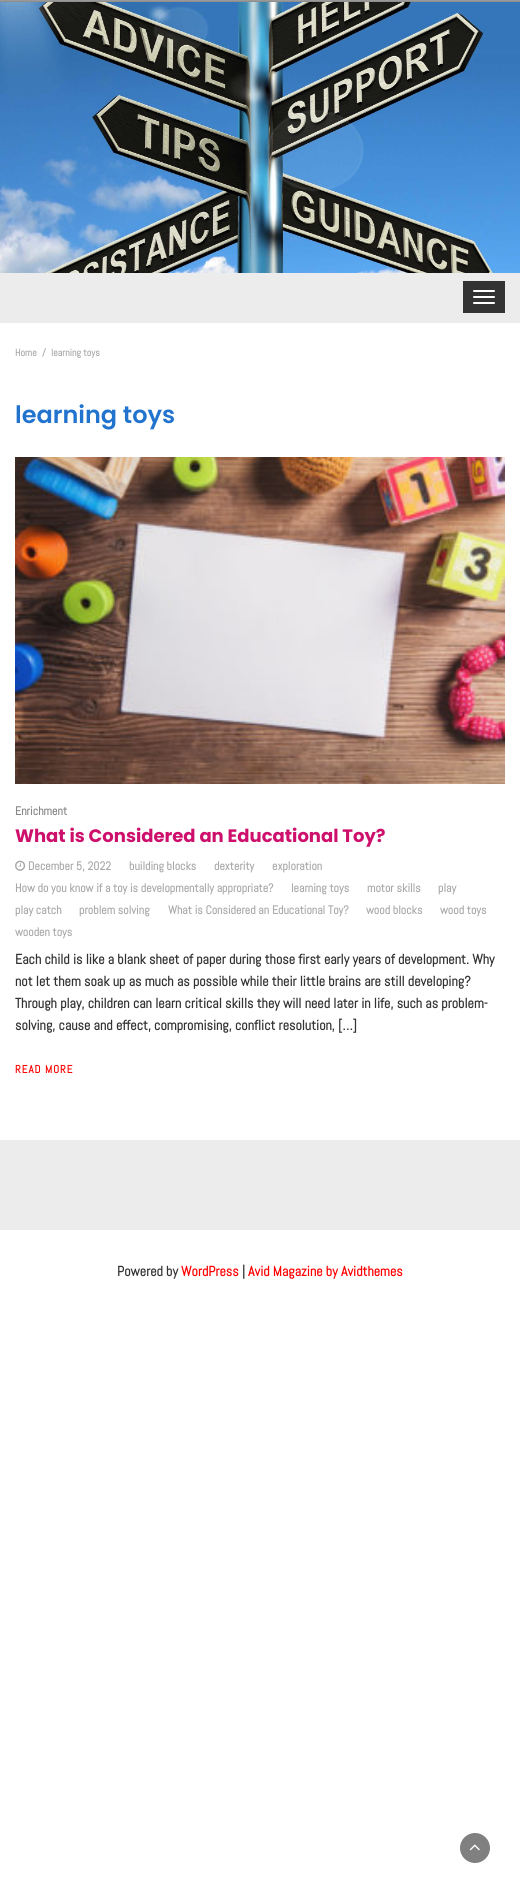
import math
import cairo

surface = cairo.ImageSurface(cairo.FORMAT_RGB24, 520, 1893)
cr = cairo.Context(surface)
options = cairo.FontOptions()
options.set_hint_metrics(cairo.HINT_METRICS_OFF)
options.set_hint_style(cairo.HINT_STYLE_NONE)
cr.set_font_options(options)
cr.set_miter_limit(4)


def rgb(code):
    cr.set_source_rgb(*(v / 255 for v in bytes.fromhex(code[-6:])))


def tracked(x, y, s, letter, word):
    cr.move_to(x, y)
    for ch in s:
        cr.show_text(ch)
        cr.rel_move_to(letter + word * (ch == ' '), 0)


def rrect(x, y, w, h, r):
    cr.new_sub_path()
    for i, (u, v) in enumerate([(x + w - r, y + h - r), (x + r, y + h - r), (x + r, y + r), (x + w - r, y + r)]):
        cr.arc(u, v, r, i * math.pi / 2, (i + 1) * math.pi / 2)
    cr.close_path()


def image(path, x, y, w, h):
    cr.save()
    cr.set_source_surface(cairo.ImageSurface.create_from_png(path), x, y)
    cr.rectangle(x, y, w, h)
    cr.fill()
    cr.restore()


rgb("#ffffff")
cr.paint()
rgb("#999999")
cr.rectangle(0, 0, 520, 1)
cr.fill()
rgb("#8e8e8e")
cr.rectangle(0, 1, 520, 1)
cr.fill()
image("img/1.png", 0, 2, 520, 271)
rgb("#ececec")
cr.rectangle(0, 273, 520, 50)
cr.fill()
rgb("#333333")
cr.rectangle(463, 281, 42, 32)
cr.fill()
rgb("#ffffff")
rrect(473, 290, 22, 2, 1)
cr.fill()
rrect(473, 296, 22, 2, 1)
cr.fill()
rrect(473, 302, 22, 2, 1)
cr.fill()
image("img/2.png", 15, 457, 490, 327)
image("img/3.png", 15, 860, 11, 11)
rgb("#ececec")
cr.rectangle(0, 1140, 520, 90)
cr.fill()
rgb("#808080")
cr.arc(475, 1848, 15, 0, 2 * math.pi)
cr.fill()
image("img/4.png", 469, 1844, 11, 7)
cr.select_font_face("Abel", cairo.FONT_SLANT_NORMAL, cairo.FONT_WEIGHT_BOLD)
cr.set_font_size(10)
rgb("#aaaaaa")
for x, y, s in [
    (15, 356, "Home"),
    (42, 356, "/"),
    (51, 356, "learning toys"),
]:
    cr.move_to(x, y)
    cr.show_text(s)
cr.select_font_face("Poppins SemiBold")
cr.set_font_size(24)
rgb("#2173ce")
cr.move_to(15, 423)
cr.show_text("learning toys")
cr.select_font_face("Abel", cairo.FONT_SLANT_NORMAL, cairo.FONT_WEIGHT_BOLD)
cr.set_font_size(12)
rgb("#888888")
cr.move_to(15, 815)
cr.show_text("Enrichment")
cr.select_font_face("Poppins", cairo.FONT_SLANT_NORMAL, cairo.FONT_WEIGHT_BOLD)
cr.set_font_size(18)
rgb("#ce106d")
cr.move_to(15, 842)
cr.show_text("What is Considered an Educational Toy?")
cr.select_font_face("Abel", cairo.FONT_SLANT_NORMAL, cairo.FONT_WEIGHT_BOLD)
cr.set_font_size(11.9)
rgb("#aaaaaa")
for x, y, s in [
    (28, 870, "December 5, 2022"),
    (129, 870, "building blocks"),
    (214, 870, "dexterity"),
    (272, 870, "exploration"),
    (15, 892, "How do you know if a toy is developmentally appropriate?"),
    (291, 892, "learning toys"),
    (367, 892, "motor skills"),
    (438, 892, "play"),
    (15, 914, "play catch"),
    (79, 914, "problem solving"),
    (168, 914, "What is Considered an Educational Toy?"),
    (366, 914, "wood blocks"),
    (440, 914, "wood toys"),
    (15, 936, "wooden toys"),
]:
    cr.move_to(x, y)
    cr.show_text(s)
cr.set_font_size(14)
rgb("#333333")
for x, y, s in [
    (15, 964, "Each child is like a blank sheet of paper during those first early years of development. Why"),
    (15, 986, "not let them soak up as much as possible while their little brains are still developing?"),
    (15, 1008, "Through play, children can learn critical skills they will need later in life, such as problem-"),
    (15, 1030, "solving, cause and effect, compromising, conflict resolution, […]"),
]:
    cr.move_to(x, y)
    cr.show_text(s)
cr.set_font_size(11)
rgb("#ff0000")
tracked(15, 1073, "READ MORE", 1, 0)
cr.set_font_size(14)
rgb("#333333")
cr.move_to(117, 1276)
cr.show_text("Powered by")
rgb("#ff0000")
cr.move_to(181, 1276)
cr.show_text("WordPress")
rgb("#333333")
cr.move_to(242, 1276)
cr.show_text("|")
rgb("#ff0000")
cr.move_to(248, 1276)
cr.show_text("Avid Magazine by Avidthemes")
surface.write_to_png("page.png")
